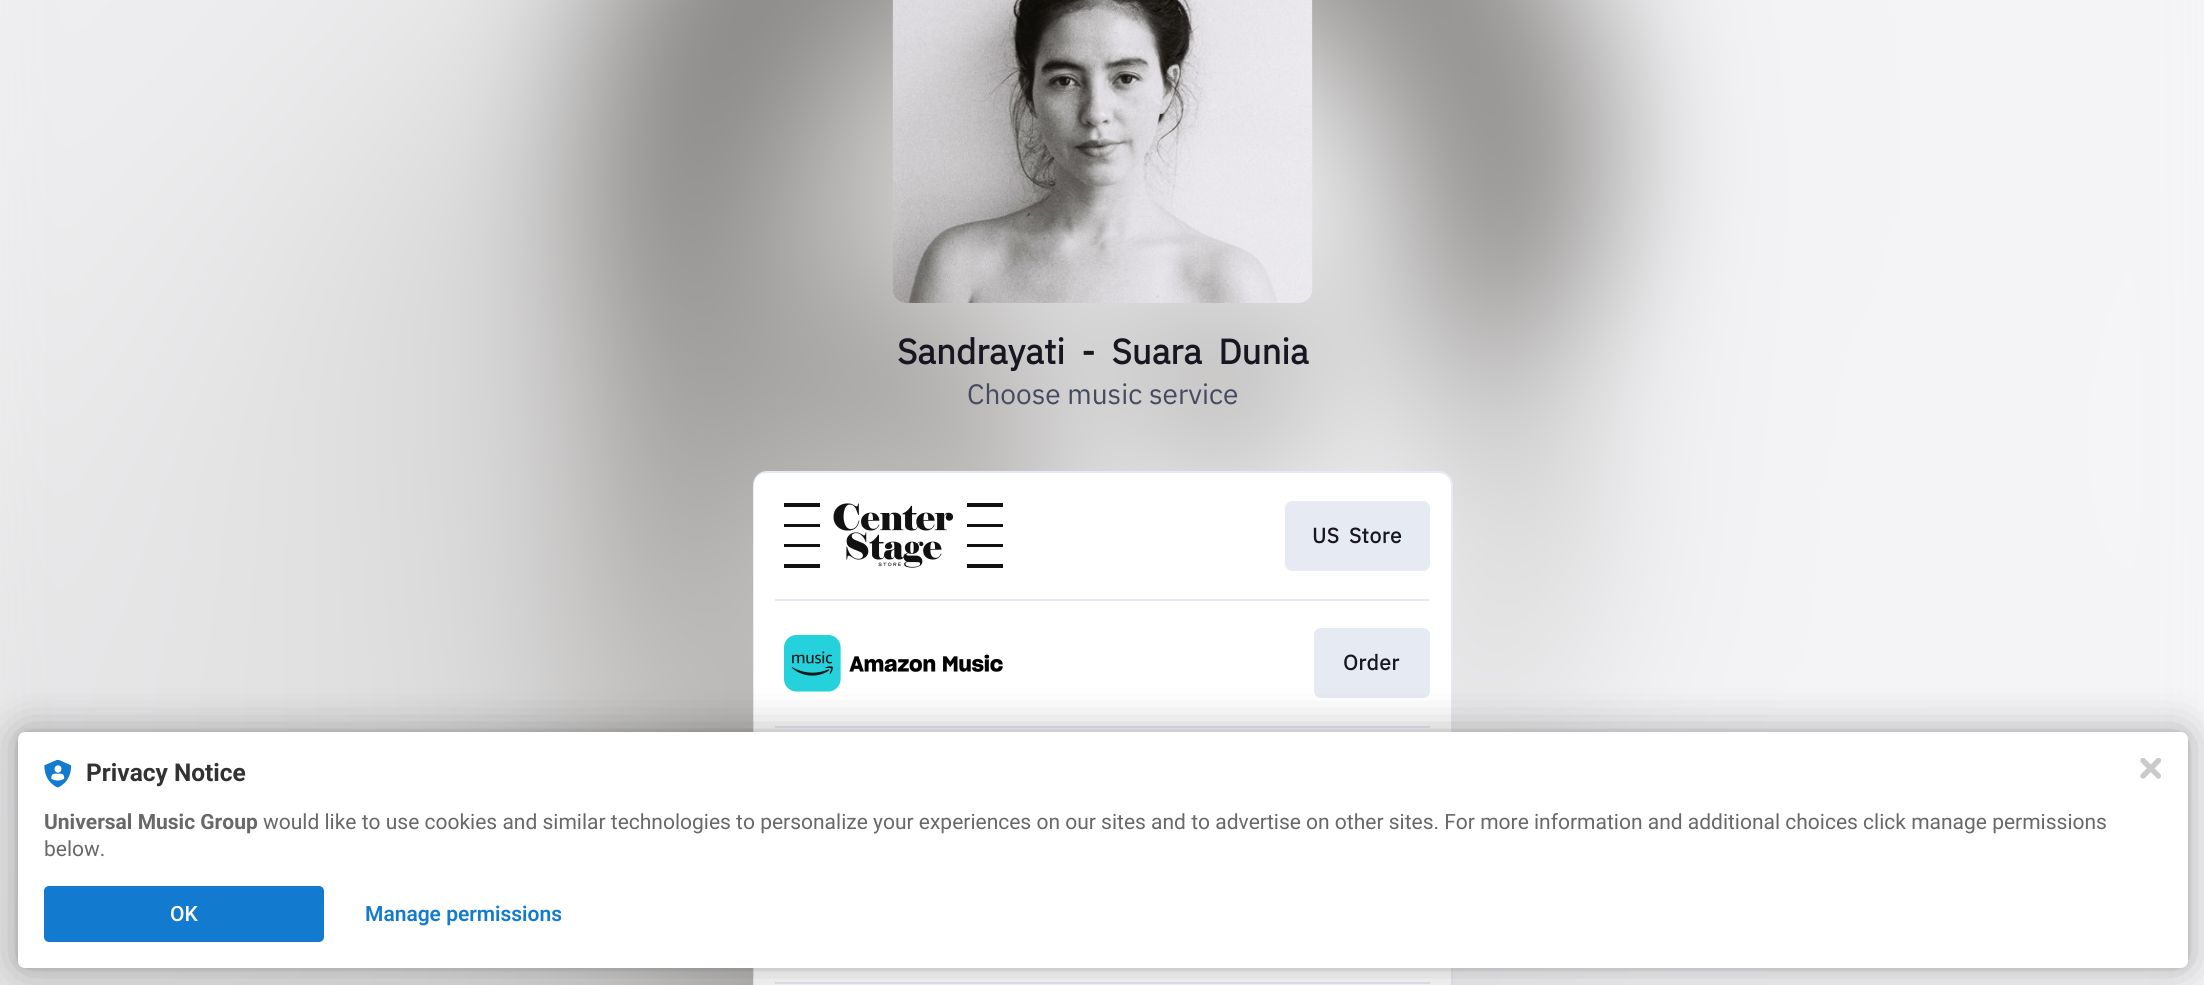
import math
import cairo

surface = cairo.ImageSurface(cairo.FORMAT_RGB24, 2204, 985)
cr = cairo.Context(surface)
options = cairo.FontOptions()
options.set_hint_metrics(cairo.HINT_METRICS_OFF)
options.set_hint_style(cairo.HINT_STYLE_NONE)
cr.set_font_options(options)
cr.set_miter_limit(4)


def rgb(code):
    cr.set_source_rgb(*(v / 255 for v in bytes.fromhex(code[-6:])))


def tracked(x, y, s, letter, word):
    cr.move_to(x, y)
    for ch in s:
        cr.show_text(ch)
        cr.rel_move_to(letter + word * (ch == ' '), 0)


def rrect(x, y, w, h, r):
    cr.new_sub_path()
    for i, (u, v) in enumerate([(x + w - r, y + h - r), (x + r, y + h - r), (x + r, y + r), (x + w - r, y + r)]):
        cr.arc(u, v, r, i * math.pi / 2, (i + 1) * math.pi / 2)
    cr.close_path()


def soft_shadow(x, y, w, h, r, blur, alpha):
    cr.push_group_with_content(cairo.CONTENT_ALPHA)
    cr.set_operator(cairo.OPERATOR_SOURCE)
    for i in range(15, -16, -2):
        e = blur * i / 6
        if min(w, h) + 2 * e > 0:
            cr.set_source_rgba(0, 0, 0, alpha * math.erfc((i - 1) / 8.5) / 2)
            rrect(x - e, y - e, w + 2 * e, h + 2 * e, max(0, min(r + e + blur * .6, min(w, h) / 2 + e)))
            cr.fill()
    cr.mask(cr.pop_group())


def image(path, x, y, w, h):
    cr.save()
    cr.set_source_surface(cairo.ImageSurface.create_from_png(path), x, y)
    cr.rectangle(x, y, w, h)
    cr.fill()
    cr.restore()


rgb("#ffffff")
cr.paint()
image("img/1.png", 0, 0, 2204, 985)
image("img/2.png", 892, 0, 421, 303)
rrect(754, 472, 698, 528, 13)
rgb("#e6eaf2")
cr.stroke()
rgb("#ffffff")
rrect(754, 473, 697, 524, 12)
cr.fill()
image("img/3.png", 784, 503, 219, 65)
rgb("#e6eaf2")
rrect(1285, 501, 145, 70, 7)
cr.fill()
cr.rectangle(775, 599, 655, 2)
cr.fill()
image("img/4.png", 784, 634, 219, 58)
rrect(1314, 628, 116, 70, 7)
cr.fill()
cr.rectangle(775, 726, 655, 2)
cr.fill()
cr.rectangle(775, 982, 655, 2)
cr.fill()
rgb("#000000")
soft_shadow(18, 732, 2170, 236, 7, 3.5, 0.12)
soft_shadow(18, 732, 2170, 236, 7, 21, 0.3)
rgb("#ffffff")
rrect(18, 732, 2170, 236, 7)
cr.fill()
image("img/5.png", 44, 760, 28, 28)
rgb("#137bcf")
rrect(44, 886, 280, 56, 5)
cr.fill()
image("img/6.png", 2140, 758, 21, 21)
cr.select_font_face("IBM Plex Sans", cairo.FONT_SLANT_NORMAL, cairo.FONT_WEIGHT_BOLD)
cr.set_font_size(35)
rgb("#181721")
tracked(897, 364, "Sandrayati - Suara Dunia", 0, 8)
cr.select_font_face("IBM Plex Sans")
cr.set_font_size(28)
rgb("#454b5f")
cr.move_to(967, 404)
cr.show_text("Choose music service")
cr.select_font_face("IBM Plex Sans", cairo.FONT_SLANT_NORMAL, cairo.FONT_WEIGHT_BOLD)
cr.set_font_size(21)
rgb("#181721")
tracked(1312, 543, "US Store", 0.5, 4)
tracked(1343, 670, "Order", 0.5, 0)
cr.select_font_face("Roboto", cairo.FONT_SLANT_NORMAL, cairo.FONT_WEIGHT_BOLD)
cr.set_font_size(24.5)
rgb("#323232")
cr.move_to(86, 781)
cr.show_text("Privacy Notice")
cr.set_font_size(21)
rgb("#686868")
cr.move_to(44, 829)
cr.show_text("Universal Music Group")
cr.select_font_face("Roboto")
cr.move_to(263, 829)
cr.show_text("would like to use cookies and similar technologies to personalize your experiences on our sites and to advertise on other sites. For more information and additional choices click manage permissions")
cr.move_to(44, 856)
cr.show_text("below.")
cr.select_font_face("Roboto Medium")
rgb("#ffffff")
cr.move_to(170, 921)
cr.show_text("OK")
cr.select_font_face("Roboto SemiBold")
rgb("#137bcf")
cr.move_to(365, 921)
cr.show_text("Manage permissions")
surface.write_to_png("page.png")
